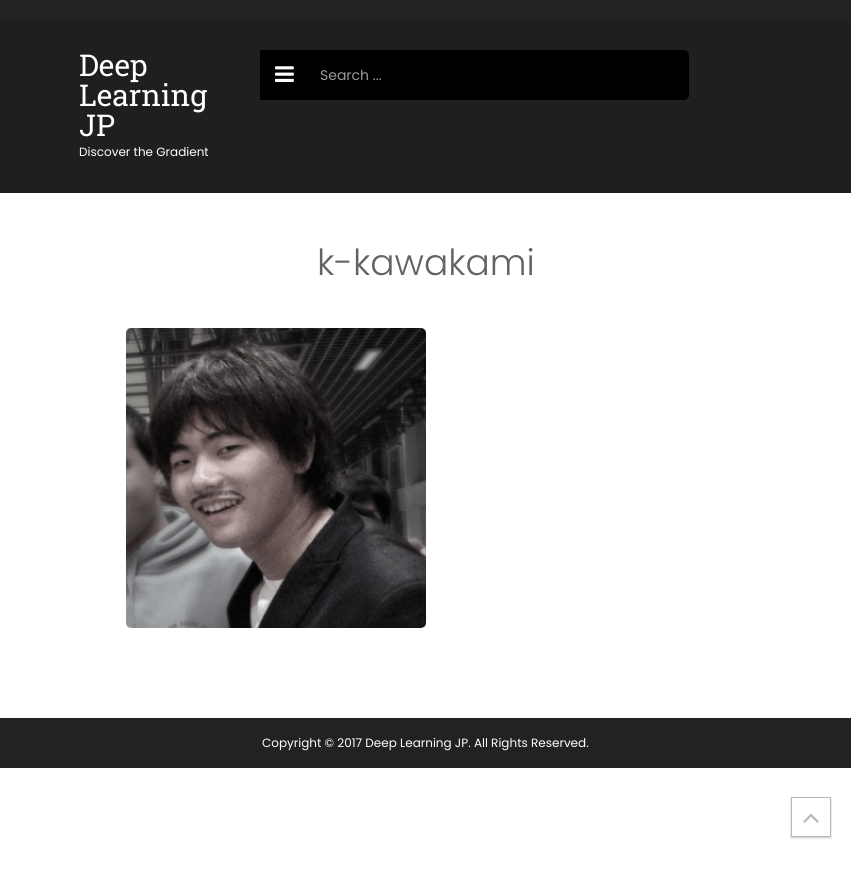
import math
import cairo

surface = cairo.ImageSurface(cairo.FORMAT_RGB24, 851, 877)
cr = cairo.Context(surface)
options = cairo.FontOptions()
options.set_hint_metrics(cairo.HINT_METRICS_OFF)
options.set_hint_style(cairo.HINT_STYLE_NONE)
cr.set_font_options(options)
cr.set_miter_limit(4)


def rgb(code):
    cr.set_source_rgb(*(v / 255 for v in bytes.fromhex(code[-6:])))


def rrect(x, y, w, h, r):
    cr.new_sub_path()
    for i, (u, v) in enumerate([(x + w - r, y + h - r), (x + r, y + h - r), (x + r, y + r), (x + w - r, y + r)]):
        cr.arc(u, v, r, i * math.pi / 2, (i + 1) * math.pi / 2)
    cr.close_path()


def soft_shadow(x, y, w, h, r, blur, alpha):
    cr.push_group_with_content(cairo.CONTENT_ALPHA)
    cr.set_operator(cairo.OPERATOR_SOURCE)
    for i in range(15, -16, -2):
        e = blur * i / 6
        if min(w, h) + 2 * e > 0:
            cr.set_source_rgba(0, 0, 0, alpha * math.erfc((i - 1) / 8.5) / 2)
            rrect(x - e, y - e, w + 2 * e, h + 2 * e, max(0, min(r + e + blur * .6, min(w, h) / 2 + e)))
            cr.fill()
    cr.mask(cr.pop_group())


def image(path, x, y, w, h):
    cr.save()
    cr.set_source_surface(cairo.ImageSurface.create_from_png(path), x, y)
    cr.rectangle(x, y, w, h)
    cr.fill()
    cr.restore()


rgb("#ffffff")
cr.paint()
for x, y, w, h, color in [
    (0, 0, 851, 20, "#222222"),
    (0, 20, 851, 173, "#1f1f1f"),
    (260, 50, 50, 50, "#000000"),
]:
    rgb(color)
    cr.rectangle(x, y, w, h)
    cr.fill()
image("img/1.png", 275, 66, 19, 16)
rgb("#222222")
cr.rectangle(684, 50, 5, 50)
cr.fill()
rgb("#000000")
cr.new_path()
cr.move_to(310, 50)
cr.line_to(684, 50)
cr.curve_to(687, 50, 689, 52, 689, 55)
cr.line_to(689, 95)
cr.curve_to(689, 98, 687, 100, 684, 100)
cr.line_to(310, 100)
cr.close_path()
cr.fill()
image("img/2.png", 126, 328, 300, 300)
rgb("#222222")
cr.rectangle(0, 718, 851, 50)
cr.fill()
cr.save()
cr.set_fill_rule(cairo.FILL_RULE_EVEN_ODD)
cr.new_path()
cr.move_to(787, 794)
cr.line_to(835, 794)
cr.line_to(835, 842)
cr.line_to(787, 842)
cr.close_path()
cr.move_to(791, 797)
cr.line_to(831, 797)
cr.line_to(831, 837)
cr.line_to(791, 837)
cr.close_path()
cr.clip()
rgb("#6b768e")
soft_shadow(791, 798, 40, 40, 0, 1, 0.4)
cr.restore()
cr.rectangle(791.5, 797.5, 39, 39)
rgb("#b8b8b8")
cr.set_line_width(1)
cr.stroke()
image("img/3.png", 803, 813, 16, 10)
cr.select_font_face("Roboto Slab")
cr.set_font_size(30)
rgb("#ffffff")
for x, y, s in [
    (79, 76, "Deep"),
    (79, 106, "Learning"),
    (79, 136, "JP"),
]:
    cr.move_to(x, y)
    cr.show_text(s)
cr.select_font_face("Poppins")
cr.set_font_size(12)
cr.move_to(79, 156)
cr.show_text("Discover the Gradient")
cr.set_font_size(14)
rgb("#999999")
cr.move_to(320, 80)
cr.show_text("Search ...")
cr.select_font_face("Poppins Light")
cr.set_font_size(36)
rgb("#636363")
cr.move_to(317, 275)
cr.show_text("k-kawakami")
cr.select_font_face("Poppins")
cr.set_font_size(12)
rgb("#ffffff")
cr.move_to(262, 747)
cr.show_text("Copyright © 2017 Deep Learning JP. All Rights Reserved.")
surface.write_to_png("page.png")
